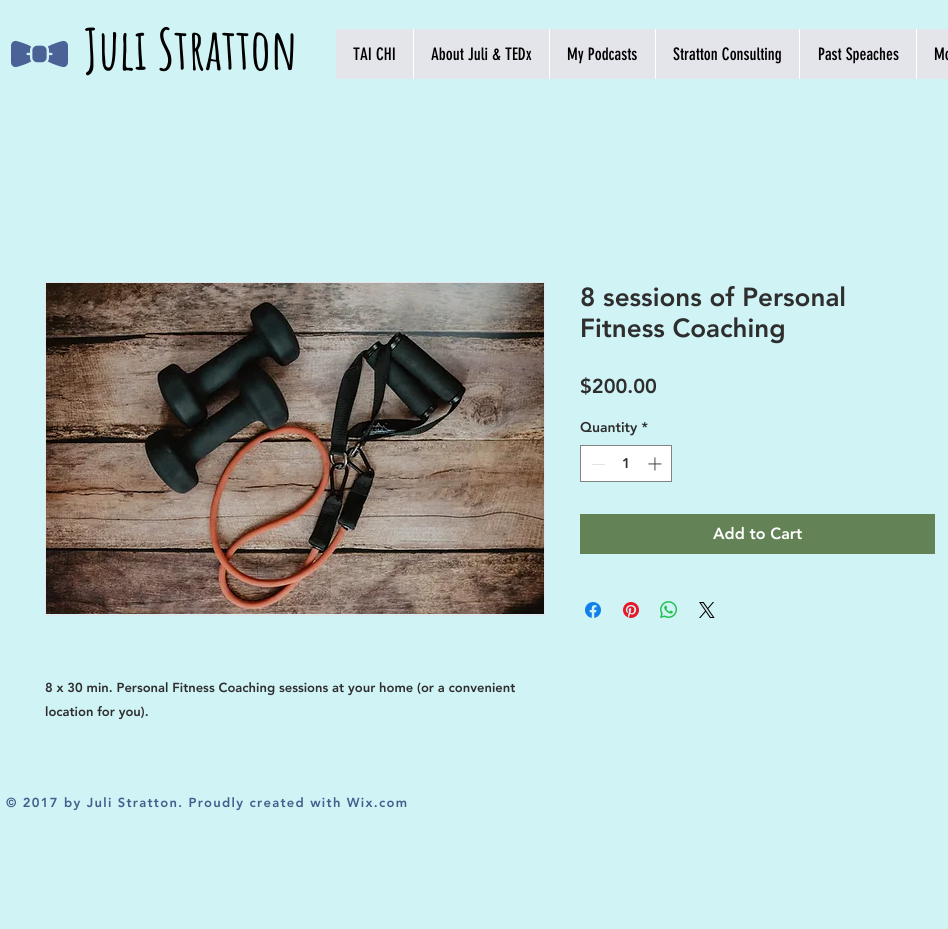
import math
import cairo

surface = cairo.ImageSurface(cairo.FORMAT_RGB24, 948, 929)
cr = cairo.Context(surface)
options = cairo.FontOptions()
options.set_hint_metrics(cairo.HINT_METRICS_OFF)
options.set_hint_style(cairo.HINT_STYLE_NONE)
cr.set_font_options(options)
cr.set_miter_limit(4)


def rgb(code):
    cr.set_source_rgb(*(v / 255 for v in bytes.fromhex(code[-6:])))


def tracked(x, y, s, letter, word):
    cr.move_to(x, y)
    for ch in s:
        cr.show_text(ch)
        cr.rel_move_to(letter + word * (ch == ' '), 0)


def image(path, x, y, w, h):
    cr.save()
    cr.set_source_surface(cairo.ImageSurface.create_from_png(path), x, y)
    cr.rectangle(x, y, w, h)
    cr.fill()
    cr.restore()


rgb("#d0f3f5")
cr.paint()
image("img/1.png", 11, 40, 57, 28)
for x, y, w, h, color in [
    (336, 29, 612, 50, "#e4e4eb"),
    (413, 29, 1, 50, "#ffffff"),
    (549, 29, 1, 50, "#ffffff"),
    (655, 29, 1, 50, "#ffffff"),
    (799, 29, 1, 50, "#ffffff"),
    (916, 29, 1, 50, "#ffffff"),
]:
    rgb(color)
    cr.rectangle(x, y, w, h)
    cr.fill()
cr.rectangle(580.5, 445.5, 91, 36)
cr.fill_preserve()
rgb("#828282")
cr.set_line_width(1)
cr.stroke()
rgb("#e3e3e3")
cr.rectangle(592, 464, 13, 1)
cr.fill()
image("img/2.png", 648, 457, 14, 14)
rgb("#638256")
cr.rectangle(580, 514, 355, 40)
cr.fill()
image("img/3.png", 585, 602, 16, 16)
image("img/4.png", 623, 602, 16, 16)
image("img/5.png", 660, 601, 17, 17)
image("img/6.png", 699, 602, 16, 16)
cr.rectangle(45.5, 282.5, 499, 333)
rgb("#e4e4eb")
cr.stroke()
image("img/7.png", 46, 283, 498, 331)
cr.select_font_face("Amatic SC", cairo.FONT_SLANT_NORMAL, cairo.FONT_WEIGHT_BOLD)
cr.set_font_size(56)
rgb("#000000")
cr.move_to(84, 70)
cr.show_text("Juli Stratton")
cr.select_font_face("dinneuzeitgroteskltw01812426")
cr.set_font_size(17)
for x, y, s in [
    (353, 60, "TAI CHI"),
    (431, 60, "About Juli & TEDx"),
    (567, 60, "My Podcasts"),
    (673, 60, "Stratton Consulting"),
    (818, 60, "Past Speaches"),
    (934, 60, "Mo"),
]:
    cr.move_to(x, y)
    cr.show_text(s)
cr.select_font_face("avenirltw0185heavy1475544 Black")
cr.set_font_size(26)
rgb("#2f2e2e")
cr.move_to(580, 306)
cr.show_text("8 sessions of Personal")
cr.move_to(580, 337)
cr.show_text("Fitness Coaching")
cr.set_font_size(20)
cr.move_to(580, 393)
cr.show_text("$200.00")
cr.set_font_size(14)
cr.move_to(580, 432)
cr.show_text("Quantity *")
cr.move_to(622, 468)
cr.show_text("1")
cr.set_font_size(16)
rgb("#ffffff")
cr.move_to(713, 539)
cr.show_text("Add to Cart")
cr.set_font_size(13)
rgb("#2f2e2e")
cr.move_to(45, 692)
cr.show_text("8 x 30 min. Personal Fitness Coaching sessions at your home (or a convenient")
cr.move_to(45, 716)
cr.show_text("location for you).")
rgb("#415f8c")
tracked(6, 807, "© 2017 by Juli Stratton. Proudly created with Wix.com", 1.3, 0)
surface.write_to_png("page.png")
